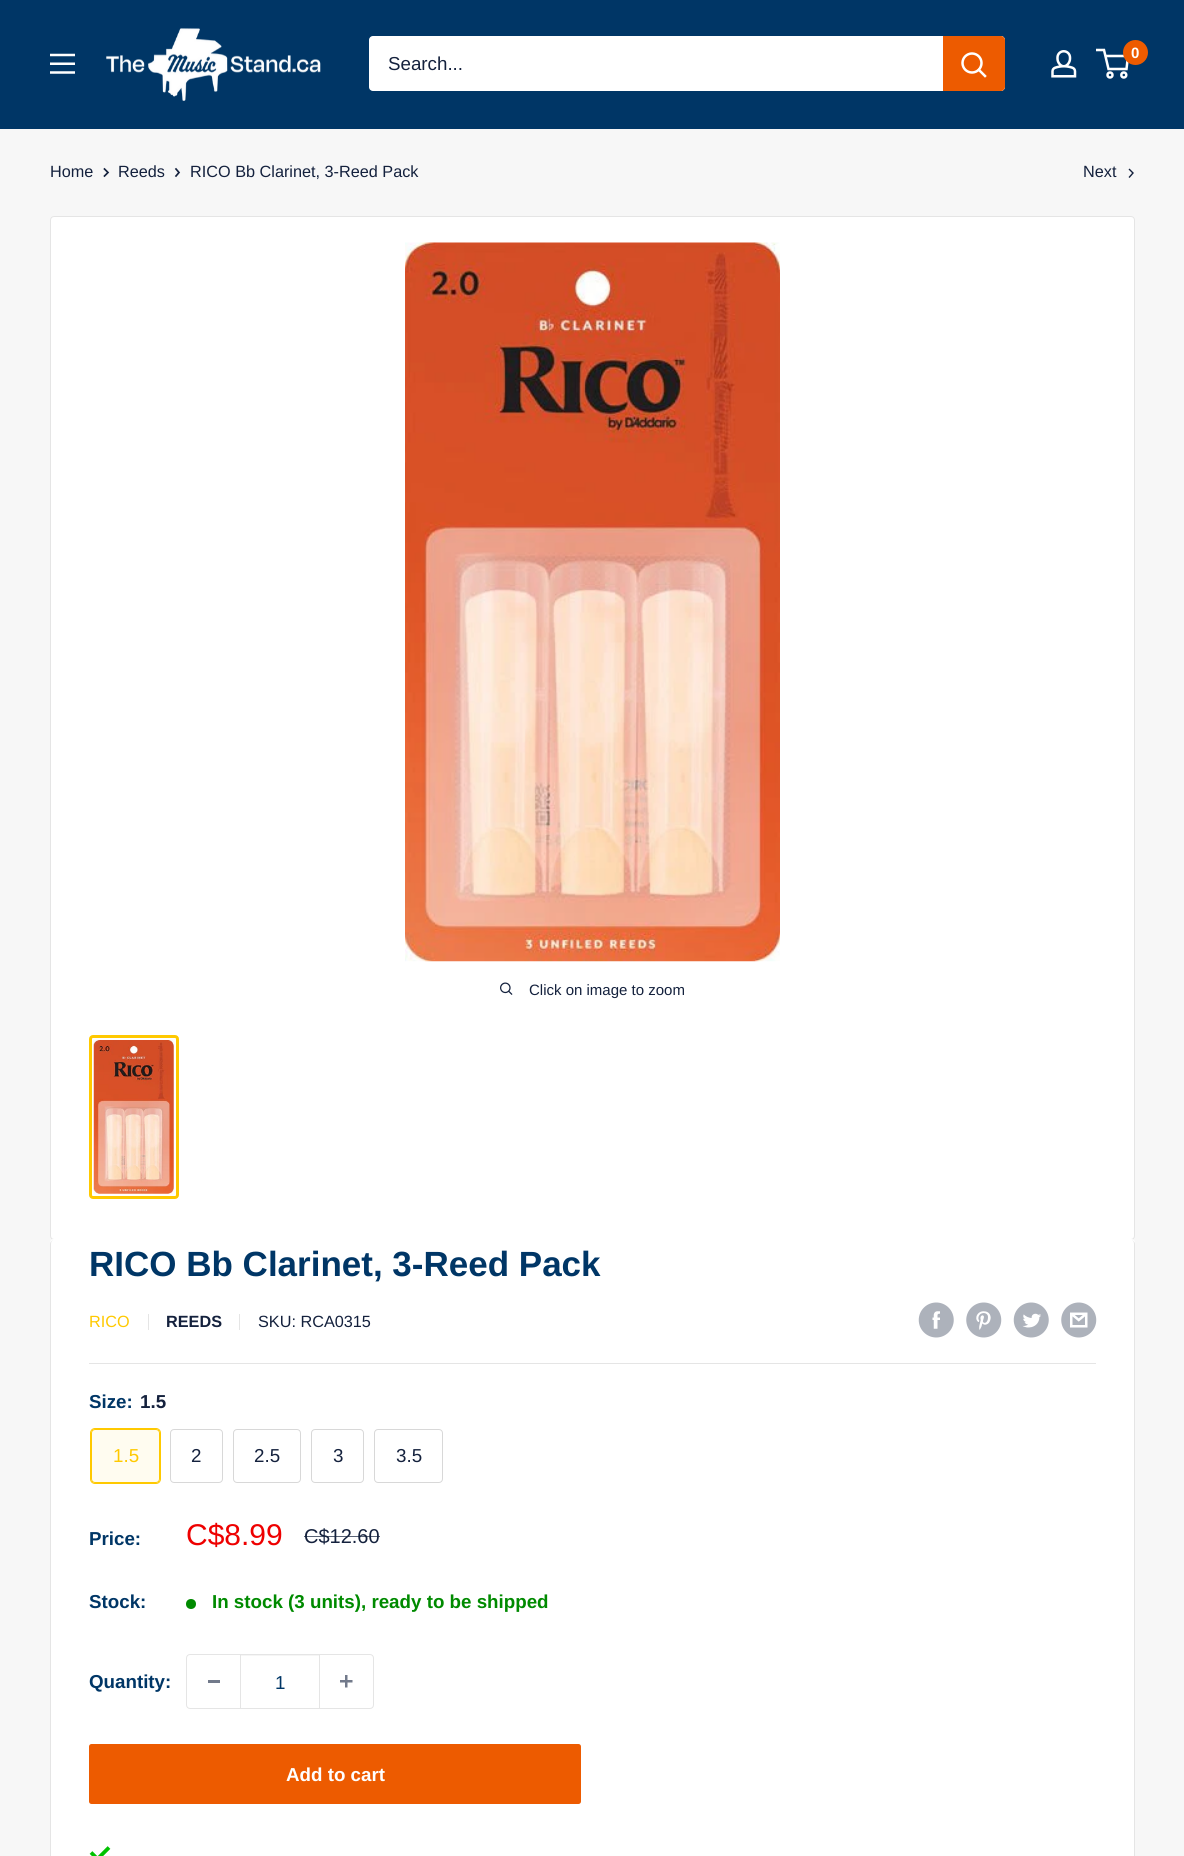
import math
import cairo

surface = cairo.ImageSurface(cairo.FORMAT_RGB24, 1184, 1856)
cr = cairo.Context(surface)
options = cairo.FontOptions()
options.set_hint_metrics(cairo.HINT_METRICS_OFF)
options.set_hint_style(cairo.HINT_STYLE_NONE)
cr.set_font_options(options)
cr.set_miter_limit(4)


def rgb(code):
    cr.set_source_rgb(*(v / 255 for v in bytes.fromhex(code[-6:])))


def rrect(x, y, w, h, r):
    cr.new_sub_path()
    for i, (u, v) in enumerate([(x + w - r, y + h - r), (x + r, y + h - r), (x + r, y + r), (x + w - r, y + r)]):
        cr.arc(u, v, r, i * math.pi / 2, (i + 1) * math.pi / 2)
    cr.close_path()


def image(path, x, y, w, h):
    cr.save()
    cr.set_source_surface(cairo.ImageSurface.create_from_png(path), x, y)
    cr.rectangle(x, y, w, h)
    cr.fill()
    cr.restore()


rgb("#f7f7f7")
cr.paint()
rgb("#003666")
cr.rectangle(0, 0, 1184, 129)
cr.fill()
image("img/1.png", 50, 53, 25, 21)
image("img/2.png", 106, 28, 215, 73)
rgb("#ffffff")
rrect(369, 36, 636, 55, 4)
cr.fill()
rgb("#ed5b00")
cr.new_path()
cr.move_to(943, 36)
cr.line_to(1001, 36)
cr.curve_to(1003, 36, 1005, 38, 1005, 40)
cr.line_to(1005, 87)
cr.curve_to(1005, 89, 1003, 91, 1001, 91)
cr.line_to(943, 91)
cr.close_path()
cr.fill()
cr.new_path()
cr.move_to(985, 76)
cr.line_to(979, 70)
rgb("#ffffff")
cr.set_line_width(2.5)
cr.set_line_cap(cairo.LINE_CAP_SQUARE)
cr.stroke()
cr.arc(972, 63, 9.5, 0, 2 * math.pi)
cr.set_line_cap(cairo.LINE_CAP_BUTT)
cr.stroke()
image("img/3.png", 1051, 50, 26, 28)
cr.arc(1110, 75, 2.5, 0, 2 * math.pi)
cr.stroke()
cr.arc(1123.8, 75, 2.5, 0, 2 * math.pi)
cr.stroke()
cr.new_path()
cr.move_to(1105.5, 56)
cr.line_to(1128, 56)
cr.line_to(1126.5, 69)
cr.line_to(1108.5, 69)
cr.line_to(1104, 50)
cr.line_to(1096, 50)
cr.stroke()
rgb("#ed5b00")
cr.arc(1135.5, 52.5, 12.5, 0, 2 * math.pi)
cr.fill()
cr.new_path()
cr.move_to(104.5, 169)
cr.line_to(108, 172.5)
cr.line_to(104.5, 176)
rgb("#14213d")
cr.set_line_width(1.7)
cr.set_line_cap(cairo.LINE_CAP_SQUARE)
cr.stroke()
cr.new_path()
cr.move_to(176, 169)
cr.line_to(179, 172.5)
cr.line_to(176, 176)
cr.stroke()
cr.new_path()
cr.move_to(1129.5, 169.5)
cr.line_to(1133, 173)
cr.line_to(1129.5, 177)
cr.set_line_width(1.4)
cr.stroke()
rgb("#ffffff")
rrect(50.5, 216.5, 1084, 1023, 3.5)
cr.fill_preserve()
rgb("#e5e5e5")
cr.set_line_width(1)
cr.set_line_cap(cairo.LINE_CAP_BUTT)
cr.stroke()
image("img/4.png", 405, 242, 375, 720)
image("img/5.png", 500, 982, 13, 13)
rrect(90.5, 1036.5, 87, 161, 2.5)
rgb("#ffc900")
cr.set_line_width(3)
cr.stroke()
image("img/6.png", 93, 1040, 81, 154)
rgb("#ffffff")
cr.new_path()
cr.move_to(54, 1239)
cr.curve_to(51, 1239, 50, 1241, 50, 1244)
cr.curve_to(50, 1242, 52, 1240, 54, 1240)
cr.line_to(1131, 1240)
cr.curve_to(1133, 1240, 1135, 1242, 1135, 1244)
cr.curve_to(1135, 1241, 1134, 1239, 1131, 1239)
cr.close_path()
cr.fill()
rrect(50, 1240, 1085, 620, 4)
cr.fill()
rgb("#e5e5e5")
cr.set_fill_rule(cairo.FILL_RULE_EVEN_ODD)
cr.new_path()
cr.move_to(54, 1240)
cr.line_to(1131, 1240)
cr.curve_to(1133, 1240, 1135, 1242, 1135, 1244)
cr.line_to(1135, 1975)
cr.curve_to(1135, 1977, 1133, 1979, 1131, 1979)
cr.line_to(54, 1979)
cr.curve_to(52, 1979, 50, 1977, 50, 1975)
cr.line_to(50, 1244)
cr.curve_to(50, 1242, 52, 1240, 54, 1240)
cr.close_path()
cr.move_to(54, 1240)
cr.line_to(1131, 1240)
cr.curve_to(1133, 1240, 1134, 1242, 1134, 1244)
cr.line_to(1134, 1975)
cr.curve_to(1134, 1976, 1133, 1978, 1131, 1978)
cr.line_to(54, 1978)
cr.curve_to(52, 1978, 51, 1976, 51, 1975)
cr.line_to(51, 1244)
cr.curve_to(51, 1242, 52, 1240, 54, 1240)
cr.close_path()
cr.fill()
cr.rectangle(148, 1314, 1, 16)
cr.fill()
cr.rectangle(239, 1314, 1, 16)
cr.fill()
image("img/7.png", 918, 1302, 36, 36)
image("img/8.png", 966, 1302, 36, 36)
image("img/9.png", 1013, 1302, 36, 36)
image("img/10.png", 1061, 1302, 36, 36)
cr.rectangle(89, 1363, 1007, 1)
cr.fill()
rrect(90.5, 1428.5, 70, 55, 4.5)
rgb("#ffc900")
cr.set_line_width(1)
cr.stroke()
cr.set_source_rgba(1, 0.788, 0, 0.06)
cr.rectangle(91, 1429, 69, 54)
cr.fill()
rrect(91.5, 1429.5, 68, 53, 3.5)
rgb("#ffc900")
cr.stroke()
rrect(170.5, 1429.5, 52, 53, 3.5)
rgb("#d8d8d8")
cr.stroke()
rrect(233.5, 1429.5, 67, 53, 3.5)
cr.stroke()
rrect(311.5, 1429.5, 52, 53, 3.5)
cr.stroke()
rrect(374.5, 1429.5, 68, 53, 3.5)
cr.stroke()
rgb("#008a00")
cr.arc(191, 1604, 5, 0, 2 * math.pi)
cr.fill()
rrect(186.5, 1654.5, 187, 54, 3.5)
rgb("#e5e5e5")
cr.stroke()
for x, y, w, h, color in [
    (208, 1680, 12, 3, "#727a8b"),
    (241, 1655, 78, 1, "#f5f5f5"),
    (319, 1655, 1, 53, "#e5e5e5"),
    (240, 1655, 1, 53, "#e5e5e5"),
]:
    rgb(color)
    cr.rectangle(x, y, w, h)
    cr.fill()
image("img/11.png", 340, 1675, 13, 13)
rgb("#ed5b00")
rrect(89, 1744, 492, 60, 2.5)
cr.fill()
cr.new_path()
cr.move_to(91, 1852.5)
cr.line_to(97.5, 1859)
cr.line_to(109, 1847.5)
rgb("#00c200")
cr.set_line_width(3.8)
cr.stroke()
cr.select_font_face("Liberation Sans")
cr.set_font_size(18.75)
rgb("#14213d")
cr.move_to(388, 70)
cr.show_text("Search...")
cr.select_font_face("Liberation Sans", cairo.FONT_SLANT_NORMAL, cairo.FONT_WEIGHT_BOLD)
cr.set_font_size(15)
rgb("#ffffff")
cr.move_to(1131, 58)
cr.show_text("0")
cr.select_font_face("Liberation Sans")
cr.set_font_size(16.25)
rgb("#14213d")
for x, y, s in [
    (50, 177, "Home"),
    (118, 177, "Reeds"),
    (190, 177, "RICO Bb Clarinet, 3-Reed Pack"),
    (1083, 177, "Next"),
]:
    cr.move_to(x, y)
    cr.show_text(s)
cr.set_font_size(15)
cr.move_to(529, 995)
cr.show_text("Click on image to zoom")
cr.select_font_face("Liberation Sans", cairo.FONT_SLANT_NORMAL, cairo.FONT_WEIGHT_BOLD)
cr.set_font_size(35)
rgb("#003666")
cr.move_to(89, 1276)
cr.show_text("RICO Bb Clarinet, 3-Reed Pack")
cr.select_font_face("Liberation Sans")
cr.set_font_size(16.25)
rgb("#ffc900")
cr.move_to(89, 1327)
cr.show_text("RICO")
cr.select_font_face("Liberation Sans", cairo.FONT_SLANT_NORMAL, cairo.FONT_WEIGHT_BOLD)
rgb("#14213d")
cr.move_to(166, 1327)
cr.show_text("REEDS")
cr.select_font_face("Liberation Sans")
cr.move_to(258, 1327)
cr.show_text("SKU: RCA0315")
cr.select_font_face("Liberation Sans", cairo.FONT_SLANT_NORMAL, cairo.FONT_WEIGHT_BOLD)
cr.set_font_size(18.75)
rgb("#003666")
cr.move_to(89, 1408)
cr.show_text("Size:")
rgb("#14213d")
cr.move_to(140, 1408)
cr.show_text("1.5")
cr.select_font_face("Liberation Sans")
rgb("#ffc900")
cr.move_to(113, 1462)
cr.show_text("1.5")
rgb("#14213d")
for x, y, s in [
    (191, 1462, "2"),
    (254, 1462, "2.5"),
    (333, 1462, "3"),
    (396, 1462, "3.5"),
]:
    cr.move_to(x, y)
    cr.show_text(s)
cr.select_font_face("Liberation Sans", cairo.FONT_SLANT_NORMAL, cairo.FONT_WEIGHT_BOLD)
rgb("#003666")
cr.move_to(89, 1545)
cr.show_text("Price:")
cr.select_font_face("Liberation Sans")
cr.set_font_size(30)
rgb("#ee0000")
cr.move_to(186, 1545)
cr.show_text("C$8.99")
cr.set_font_size(20)
rgb("#14213d")
cr.move_to(304, 1543)
cr.show_text("C$12.60")
cr.set_source_rgba(0.078, 0.129, 0.239, 0.7)
cr.rectangle(304, 1536, 76, 1)
cr.fill()
cr.select_font_face("Liberation Sans", cairo.FONT_SLANT_NORMAL, cairo.FONT_WEIGHT_BOLD)
cr.set_font_size(18.75)
rgb("#003666")
cr.move_to(89, 1608)
cr.show_text("Stock:")
rgb("#008a00")
cr.move_to(212, 1608)
cr.show_text("In stock (3 units), ready to be shipped")
rgb("#003666")
cr.move_to(89, 1688)
cr.show_text("Quantity:")
cr.select_font_face("Liberation Sans")
cr.move_to(275, 1689)
cr.show_text("1")
cr.select_font_face("Liberation Sans", cairo.FONT_SLANT_NORMAL, cairo.FONT_WEIGHT_BOLD)
rgb("#ffffff")
cr.move_to(286, 1781)
cr.show_text("Add to cart")
surface.write_to_png("page.png")
